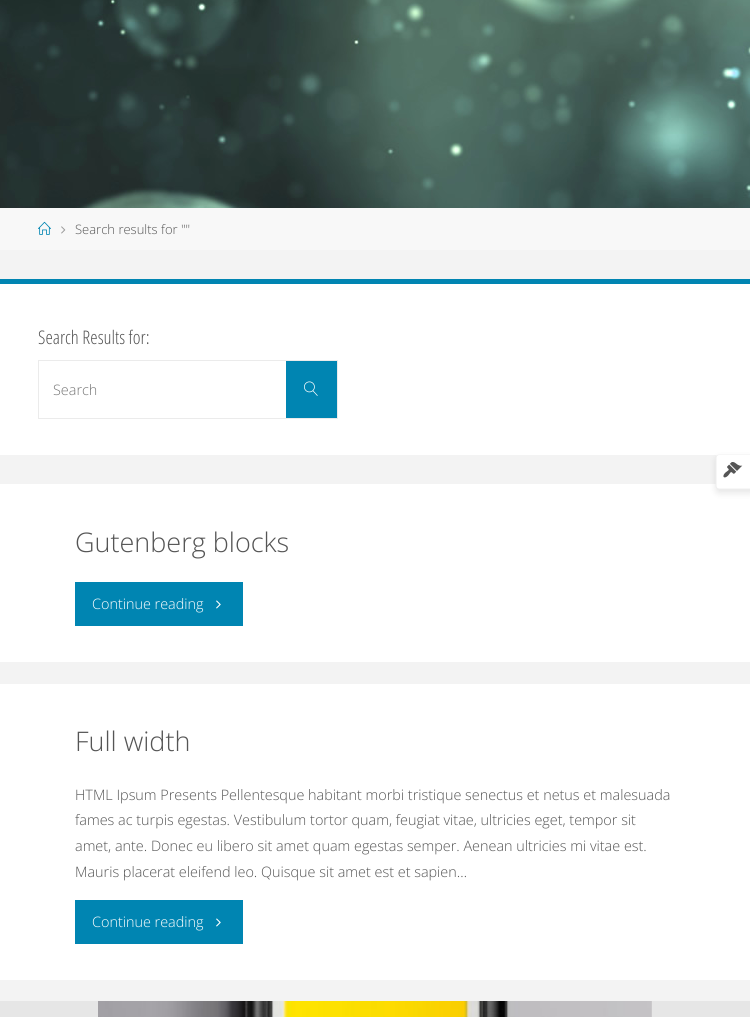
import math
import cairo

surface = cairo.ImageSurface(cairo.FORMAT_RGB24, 750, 1017)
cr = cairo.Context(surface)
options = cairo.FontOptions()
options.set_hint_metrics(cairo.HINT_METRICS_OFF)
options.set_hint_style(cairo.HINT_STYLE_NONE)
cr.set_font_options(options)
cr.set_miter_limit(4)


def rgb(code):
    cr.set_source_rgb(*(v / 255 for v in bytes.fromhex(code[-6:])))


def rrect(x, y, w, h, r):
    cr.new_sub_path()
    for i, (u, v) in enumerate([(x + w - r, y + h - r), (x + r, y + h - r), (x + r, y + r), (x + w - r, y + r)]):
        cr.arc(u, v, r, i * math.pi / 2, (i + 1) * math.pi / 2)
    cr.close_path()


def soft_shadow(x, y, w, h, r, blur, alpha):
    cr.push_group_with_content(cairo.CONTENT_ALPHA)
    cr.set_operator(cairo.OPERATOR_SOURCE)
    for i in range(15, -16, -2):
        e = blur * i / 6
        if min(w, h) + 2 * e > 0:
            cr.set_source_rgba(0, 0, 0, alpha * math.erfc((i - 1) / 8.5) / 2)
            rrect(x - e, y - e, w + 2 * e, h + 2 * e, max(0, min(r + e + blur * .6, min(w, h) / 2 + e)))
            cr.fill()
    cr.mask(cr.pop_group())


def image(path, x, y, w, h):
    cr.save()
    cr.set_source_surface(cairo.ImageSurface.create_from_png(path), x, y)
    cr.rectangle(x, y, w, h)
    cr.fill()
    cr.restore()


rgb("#f3f3f3")
cr.paint()
image("img/1.png", 0, 0, 750, 208)
rgb("#f8f8f8")
cr.rectangle(0, 208, 750, 42)
cr.fill()
image("img/2.png", 38, 221, 13, 14)
image("img/3.png", 61, 226, 5, 8)
rgb("#ffffff")
cr.rectangle(0, 284, 750, 171)
cr.fill()
rgb("#0085b2")
cr.rectangle(0, 279, 750, 5)
cr.fill()
cr.rectangle(38.5, 360.5, 299, 58)
rgb("#ebebeb")
cr.set_line_width(1)
cr.stroke()
rgb("#0085b2")
cr.rectangle(286, 361, 51, 57)
cr.fill()
image("img/4.png", 304, 381, 14, 15)
rgb("#ffffff")
cr.rectangle(0, 484, 750, 178)
cr.fill()
rgb("#0085b2")
cr.rectangle(75, 582, 168, 44)
cr.fill()
image("img/5.png", 216, 600, 5, 9)
rgb("#ffffff")
cr.rectangle(0, 684, 750, 296)
cr.fill()
rgb("#0085b2")
cr.rectangle(75, 900, 168, 44)
cr.fill()
image("img/5.png", 216, 918, 5, 9)
rgb("#e6e6e6")
cr.rectangle(0, 1001, 750, 16)
cr.fill()
image("img/6.png", 98, 1001, 554, 16)
rgb("#000000")
soft_shadow(716, 458, 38, 35, 3, 3.5, 0.1)
rgb("#ffffff")
cr.new_path()
cr.move_to(719, 454)
cr.line_to(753, 454)
cr.line_to(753, 489)
cr.line_to(719, 489)
cr.curve_to(717.5, 489, 716, 487.5, 716, 486)
cr.line_to(716, 457)
cr.curve_to(716, 455.5, 717.5, 454, 719, 454)
cr.close_path()
cr.fill()
rgb("#eeeeee")
cr.set_fill_rule(cairo.FILL_RULE_EVEN_ODD)
cr.new_path()
cr.move_to(719, 454.5)
cr.line_to(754, 454.5)
cr.line_to(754, 489.5)
cr.line_to(719, 489.5)
cr.curve_to(717, 489.5, 715.5, 488, 715.5, 486)
cr.line_to(715.5, 458)
cr.curve_to(715.5, 456, 717, 454.5, 719, 454.5)
cr.close_path()
cr.move_to(719, 455)
cr.line_to(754, 455)
cr.line_to(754, 488.5)
cr.line_to(719, 488.5)
cr.curve_to(717.5, 488.5, 716.5, 487.5, 716.5, 486)
cr.line_to(716.5, 458)
cr.curve_to(716.5, 456.5, 717.5, 455, 719, 455)
cr.close_path()
cr.fill()
image("img/7.png", 723, 462, 20, 16)
cr.select_font_face("Open Sans Light")
cr.set_font_size(13)
rgb("#555555")
cr.move_to(75, 234)
cr.show_text("Search results for \"\"")
cr.select_font_face("Open Sans Condensed Light")
cr.set_font_size(18.75)
cr.move_to(38, 344)
cr.show_text("Search Results for:")
cr.select_font_face("Open Sans Light")
cr.set_font_size(14.4)
rgb("#757575")
cr.move_to(53, 395)
cr.show_text("Search")
cr.set_font_size(27)
rgb("#555555")
cr.move_to(75, 552)
cr.show_text("Gutenberg blocks")
cr.set_font_size(14.4)
rgb("#ffffff")
cr.move_to(92, 609)
cr.show_text("Continue reading")
cr.set_font_size(27)
rgb("#555555")
cr.move_to(75, 751)
cr.show_text("Full width")
cr.set_font_size(14.4)
for x, y, s in [
    (75, 800, "HTML Ipsum Presents Pellentesque habitant morbi tristique senectus et netus et malesuada"),
    (75, 825, "fames ac turpis egestas. Vestibulum tortor quam, feugiat vitae, ultricies eget, tempor sit"),
    (75, 851, "amet, ante. Donec eu libero sit amet quam egestas semper. Aenean ultricies mi vitae est."),
    (75, 877, "Mauris placerat eleifend leo. Quisque sit amet est et sapien…"),
]:
    cr.move_to(x, y)
    cr.show_text(s)
rgb("#ffffff")
cr.move_to(92, 927)
cr.show_text("Continue reading")
surface.write_to_png("page.png")
